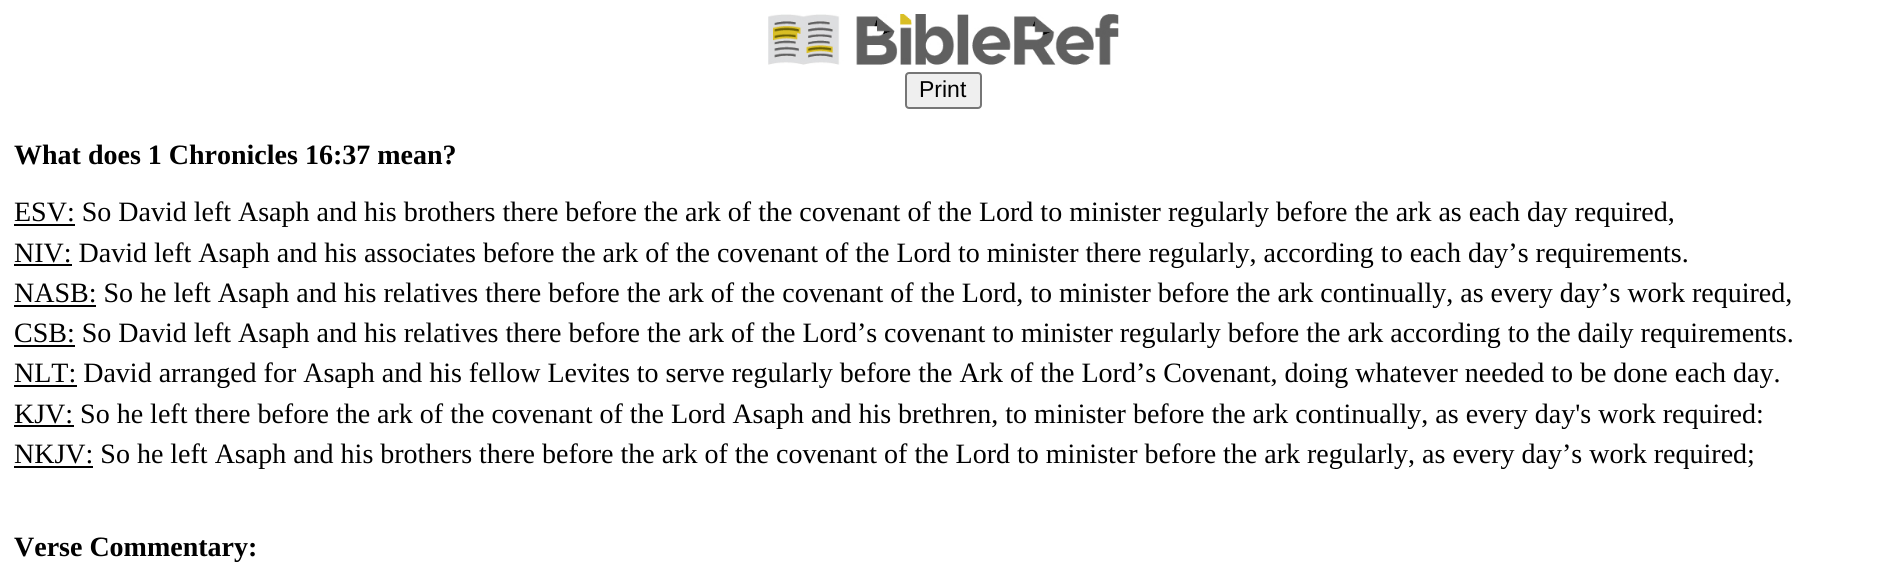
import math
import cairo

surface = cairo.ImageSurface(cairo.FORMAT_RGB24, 1886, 565)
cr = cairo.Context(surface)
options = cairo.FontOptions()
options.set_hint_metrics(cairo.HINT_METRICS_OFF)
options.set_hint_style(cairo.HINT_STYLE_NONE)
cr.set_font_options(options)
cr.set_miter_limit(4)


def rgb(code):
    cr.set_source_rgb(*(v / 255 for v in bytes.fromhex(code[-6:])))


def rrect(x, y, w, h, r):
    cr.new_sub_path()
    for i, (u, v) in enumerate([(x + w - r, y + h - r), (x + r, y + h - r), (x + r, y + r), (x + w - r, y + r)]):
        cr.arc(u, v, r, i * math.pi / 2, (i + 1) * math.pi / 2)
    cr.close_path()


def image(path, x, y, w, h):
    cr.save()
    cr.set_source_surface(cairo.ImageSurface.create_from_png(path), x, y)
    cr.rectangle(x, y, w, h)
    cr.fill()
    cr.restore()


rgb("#ffffff")
cr.paint()
image("img/1.png", 768, 14, 351, 51)
rgb("#efefef")
rrect(906, 73, 75, 35, 3)
cr.fill_preserve()
rgb("#767676")
cr.stroke()
for x, y, w, h, color in [
    (14, 224, 61, 2, "#000000"),
    (14, 264, 58, 2, "#000000"),
    (14, 305, 82, 2, "#000000"),
    (14, 345, 61, 2, "#000000"),
    (14, 385, 63, 2, "#000000"),
    (14, 425, 60, 2, "#000000"),
    (14, 466, 79, 2, "#000000"),
]:
    rgb(color)
    cr.rectangle(x, y, w, h)
    cr.fill()
cr.select_font_face("Liberation Sans")
cr.set_font_size(23)
cr.move_to(919, 97)
cr.show_text("Print")
cr.select_font_face("Liberation Serif", cairo.FONT_SLANT_NORMAL, cairo.FONT_WEIGHT_BOLD)
cr.set_font_size(28)
cr.move_to(14, 164)
cr.show_text("What does 1 Chronicles 16:37 mean?")
cr.select_font_face("Liberation Serif")
for x, y, s in [
    (14, 221, "ESV: So David left Asaph and his brothers there before the ark of the covenant of the Lord to minister regularly before the ark as each day required,"),
    (14, 262, "NIV: David left Asaph and his associates before the ark of the covenant of the Lord to minister there regularly, according to each day’s requirements."),
    (14, 302, "NASB: So he left Asaph and his relatives there before the ark of the covenant of the Lord, to minister before the ark continually, as every day’s work required,"),
    (14, 342, "CSB: So David left Asaph and his relatives there before the ark of the Lord’s covenant to minister regularly before the ark according to the daily requirements."),
    (14, 382, "NLT: David arranged for Asaph and his fellow Levites to serve regularly before the Ark of the Lord’s Covenant, doing whatever needed to be done each day."),
    (14, 423, "KJV: So he left there before the ark of the covenant of the Lord Asaph and his brethren, to minister before the ark continually, as every day's work required:"),
    (14, 463, "NKJV: So he left Asaph and his brothers there before the ark of the covenant of the Lord to minister before the ark regularly, as every day’s work required;"),
]:
    cr.move_to(x, y)
    cr.show_text(s)
cr.select_font_face("Liberation Serif", cairo.FONT_SLANT_NORMAL, cairo.FONT_WEIGHT_BOLD)
cr.move_to(14, 556)
cr.show_text("Verse Commentary:")
surface.write_to_png("page.png")
